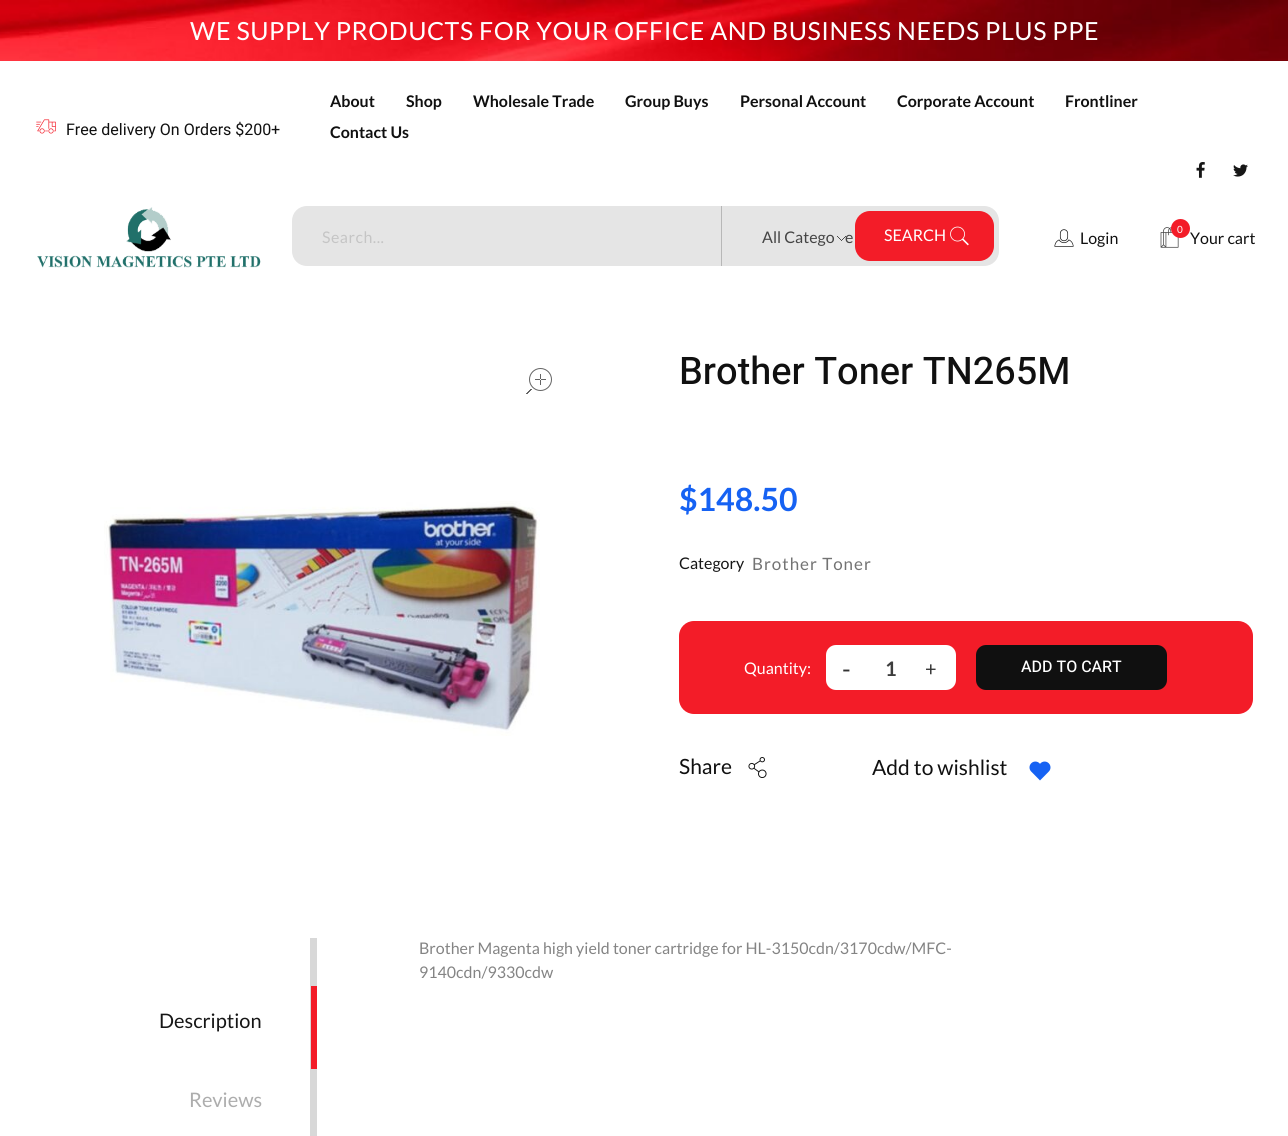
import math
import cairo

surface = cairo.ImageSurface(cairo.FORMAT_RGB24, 1288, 1136)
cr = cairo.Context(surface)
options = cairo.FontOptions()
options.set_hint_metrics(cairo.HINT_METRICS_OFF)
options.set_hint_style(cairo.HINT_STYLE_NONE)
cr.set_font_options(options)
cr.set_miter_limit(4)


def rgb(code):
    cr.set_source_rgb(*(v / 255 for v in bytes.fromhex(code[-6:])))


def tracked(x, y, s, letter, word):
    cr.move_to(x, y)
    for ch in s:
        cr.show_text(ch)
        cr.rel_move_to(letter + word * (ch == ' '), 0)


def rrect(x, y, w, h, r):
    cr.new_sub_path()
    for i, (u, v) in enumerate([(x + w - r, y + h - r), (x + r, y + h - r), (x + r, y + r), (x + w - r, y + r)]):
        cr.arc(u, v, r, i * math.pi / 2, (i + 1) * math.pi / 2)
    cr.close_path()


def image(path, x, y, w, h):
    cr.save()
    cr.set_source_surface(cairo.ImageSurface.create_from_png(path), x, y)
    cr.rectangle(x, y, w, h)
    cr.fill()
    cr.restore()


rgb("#ffffff")
cr.paint()
image("img/1.png", 0, 0, 1288, 61)
image("img/2.png", 36, 119, 20, 15)
image("img/3.png", 1196, 162, 9, 16)
image("img/4.png", 1233, 164, 15, 13)
image("img/5.png", 37, 207, 224, 61)
rgb("#e5e5e5")
cr.new_path()
cr.move_to(307, 206)
cr.line_to(721, 206)
cr.line_to(721, 266)
cr.line_to(307, 266)
cr.curve_to(298.5, 266, 292, 259.5, 292, 251)
cr.line_to(292, 221)
cr.curve_to(292, 212.5, 298.5, 206, 307, 206)
cr.close_path()
cr.fill()
cr.new_path()
cr.move_to(721, 206)
cr.line_to(984, 206)
cr.curve_to(992.5, 206, 999, 212.5, 999, 221)
cr.line_to(999, 251)
cr.curve_to(999, 259.5, 992.5, 266, 984, 266)
cr.line_to(721, 266)
cr.close_path()
cr.fill()
image("img/6.png", 837, 236, 9, 5)
rgb("#b7b7b7")
cr.rectangle(721, 206, 1, 60)
cr.fill()
rgb("#f31c28")
rrect(855, 211, 139, 50, 15)
cr.fill()
image("img/7.png", 950, 226, 19, 20)
image("img/8.png", 1054, 229, 20, 18)
image("img/9.png", 1160, 227, 19, 21)
image("img/10.png", 526, 368, 26, 26)
image("img/11.png", 104, 501, 436, 235)
rrect(679, 621, 574, 93, 15)
cr.fill()
rgb("#ffffff")
rrect(826, 645, 130, 45, 10)
cr.fill()
rgb("#101010")
rrect(976, 645, 191, 45, 10)
cr.fill()
image("img/12.png", 748, 757, 19, 21)
image("img/13.png", 1029, 761, 22, 20)
rgb("#d8d8d8")
cr.rectangle(310, 938, 7, 198)
cr.fill()
rgb("#f31c28")
cr.rectangle(311, 986, 6, 83)
cr.fill()
cr.select_font_face("Lato")
cr.set_font_size(25)
rgb("#ffffff")
tracked(190, 40, "WE SUPPLY PRODUCTS FOR YOUR OFFICE AND BUSINESS NEEDS PLUS PPE", 0.55, 0)
cr.select_font_face("Heebo")
cr.set_font_size(16)
rgb("#101010")
cr.move_to(66, 135)
cr.show_text("Free delivery On Orders $200+")
cr.select_font_face("Lato", cairo.FONT_SLANT_NORMAL, cairo.FONT_WEIGHT_BOLD)
for x, y, s in [
    (330, 107, "About"),
    (406, 107, "Shop"),
    (473, 107, "Wholesale Trade"),
    (625, 107, "Group Buys"),
    (740, 107, "Personal Account"),
    (897, 107, "Corporate Account"),
    (1065, 107, "Frontliner"),
    (330, 138, "Contact Us"),
]:
    cr.move_to(x, y)
    cr.show_text(s)
cr.select_font_face("Lato")
rgb("#c5c5c5")
tracked(322, 243, "Search...", 0.5, 0)
rgb("#444444")
cr.move_to(762, 243)
cr.show_text("All Catego")
cr.move_to(845, 243)
cr.show_text("e")
rgb("#ffffff")
cr.move_to(884, 241)
cr.show_text("SEARCH")
rgb("#101010")
cr.move_to(1080, 244)
cr.show_text("Login")
cr.move_to(1190, 244)
cr.show_text("Your cart")
rgb("#f31c28")
cr.new_path()
cr.arc(1180.5, 228.5, 9.5, 0, 2 * math.pi)
cr.fill()
cr.set_font_size(10)
rgb("#ffffff")
cr.move_to(1177, 233)
cr.show_text("0")
cr.select_font_face("Heebo Medium")
cr.set_font_size(38)
rgb("#101010")
cr.move_to(679, 384)
cr.show_text("Brother Toner TN265M")
cr.select_font_face("Lato", cairo.FONT_SLANT_NORMAL, cairo.FONT_WEIGHT_BOLD)
cr.set_font_size(32)
rgb("#1662f3")
cr.move_to(679, 511)
cr.show_text("$148.50")
cr.select_font_face("Lato")
cr.set_font_size(16)
rgb("#161616")
cr.move_to(679, 569)
cr.show_text("Category")
cr.set_font_size(17)
rgb("#737373")
tracked(752, 570, "Brother Toner", 1, 0)
cr.set_font_size(16)
rgb("#ffffff")
cr.move_to(744, 674)
cr.show_text("Quantity:")
cr.set_font_size(25)
rgb("#333333")
cr.move_to(842, 678)
cr.show_text("-")
cr.select_font_face("Lato", cairo.FONT_SLANT_NORMAL, cairo.FONT_WEIGHT_BOLD)
cr.set_font_size(20)
rgb("#3d3d3d")
cr.move_to(885, 676)
cr.show_text("1")
cr.select_font_face("Lato")
rgb("#333333")
cr.move_to(925, 676)
cr.show_text("+")
cr.select_font_face("Heebo Medium")
cr.set_font_size(16)
rgb("#ffffff")
cr.move_to(1021, 672)
cr.show_text("ADD TO CART")
cr.select_font_face("Lato")
cr.set_font_size(21)
rgb("#101010")
cr.move_to(679, 774)
cr.show_text("Share")
cr.move_to(872, 775)
cr.show_text("Add to wishlist")
cr.set_font_size(16)
rgb("#848484")
cr.move_to(419, 954)
cr.show_text("Brother Magenta high yield toner cartridge for HL-3150cdn/3170cdw/MFC-")
cr.move_to(419, 978)
cr.show_text("9140cdn/9330cdw")
cr.set_font_size(20)
rgb("#161616")
cr.move_to(159, 1028)
cr.show_text("Description")
rgb("#adadad")
cr.move_to(189, 1107)
cr.show_text("Reviews")
surface.write_to_png("page.png")
